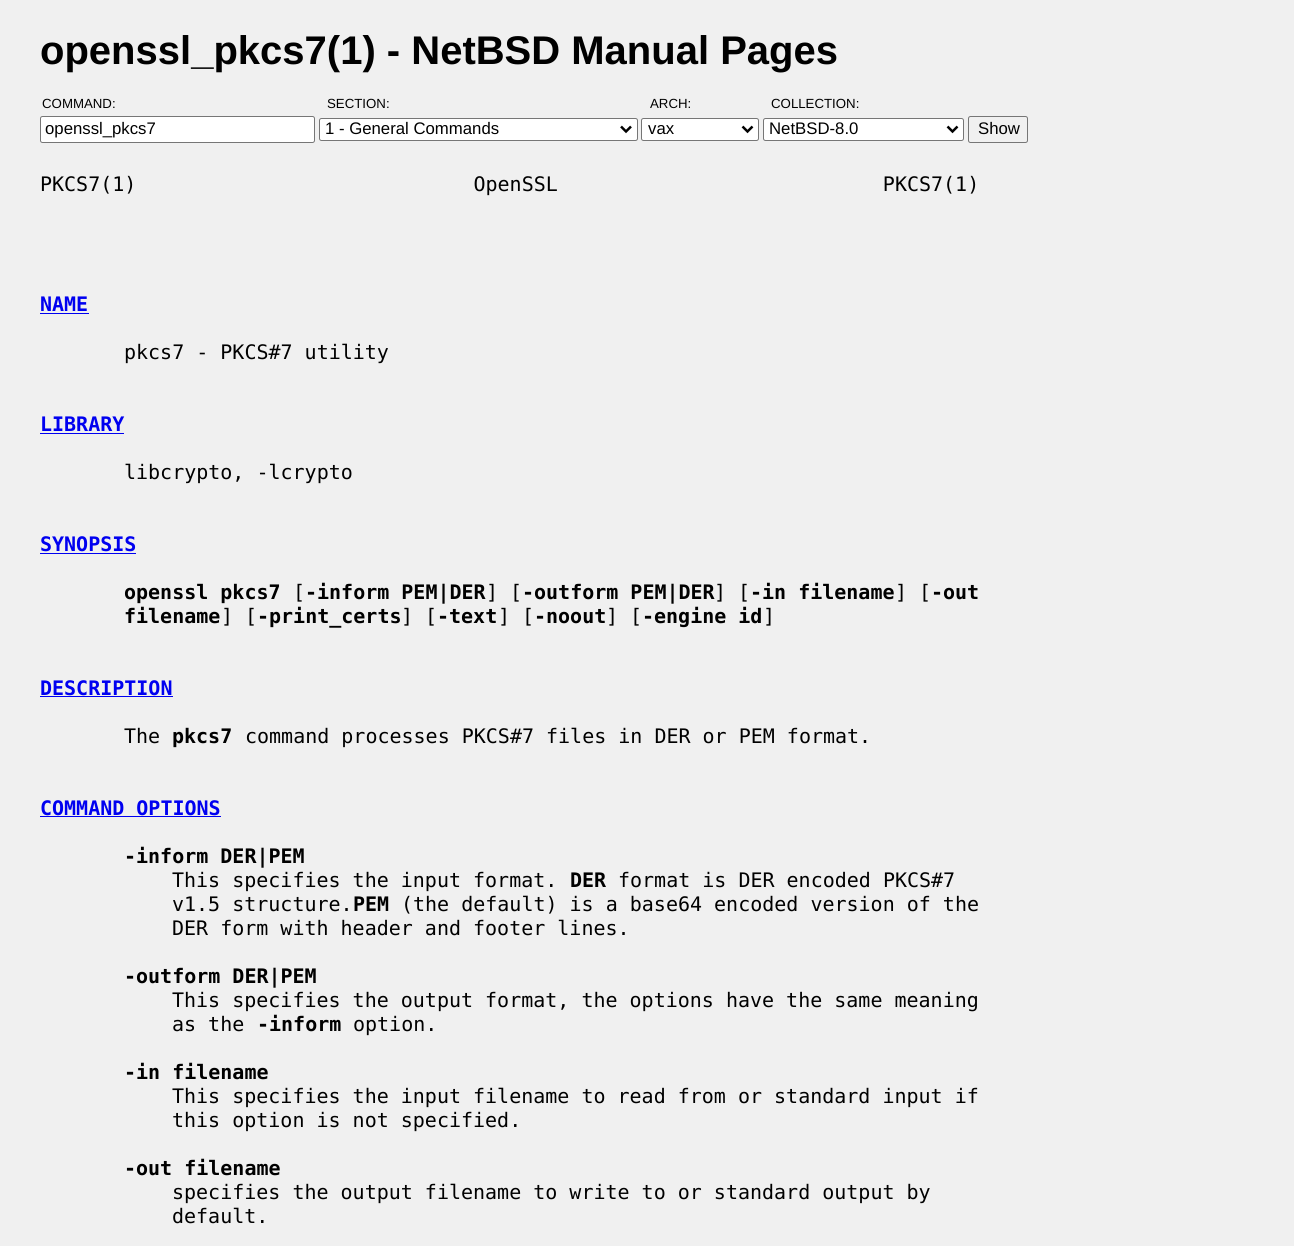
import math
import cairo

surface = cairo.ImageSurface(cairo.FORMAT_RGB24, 1294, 1246)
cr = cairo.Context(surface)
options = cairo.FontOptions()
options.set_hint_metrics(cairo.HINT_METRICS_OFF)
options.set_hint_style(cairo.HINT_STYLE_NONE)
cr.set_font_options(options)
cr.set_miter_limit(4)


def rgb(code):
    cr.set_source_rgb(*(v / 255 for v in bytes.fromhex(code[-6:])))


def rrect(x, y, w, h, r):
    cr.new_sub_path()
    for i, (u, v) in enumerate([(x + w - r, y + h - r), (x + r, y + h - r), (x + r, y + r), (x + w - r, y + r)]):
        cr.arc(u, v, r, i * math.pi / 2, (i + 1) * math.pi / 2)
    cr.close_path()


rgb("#f0f0f0")
cr.paint()
rgb("#ffffff")
rrect(40.5, 116.5, 274, 26, 2)
cr.fill_preserve()
rgb("#767676")
cr.set_line_width(1)
cr.stroke()
rgb("#ffffff")
rrect(319.5, 118.5, 318, 22, 2)
cr.fill_preserve()
rgb("#767676")
cr.stroke()
cr.new_path()
cr.move_to(621, 126.5)
cr.line_to(626, 131.5)
cr.line_to(631, 126.5)
rgb("#000000")
cr.set_line_width(2.5)
cr.stroke()
rgb("#ffffff")
rrect(641.5, 118.5, 117, 22, 2)
cr.fill_preserve()
rgb("#767676")
cr.set_line_width(1)
cr.stroke()
cr.new_path()
cr.move_to(742.5, 126.5)
cr.line_to(747.5, 131.5)
cr.line_to(752.5, 126.5)
rgb("#000000")
cr.set_line_width(2.5)
cr.stroke()
rgb("#ffffff")
rrect(763.5, 118.5, 200, 22, 2)
cr.fill_preserve()
rgb("#767676")
cr.set_line_width(1)
cr.stroke()
cr.new_path()
cr.move_to(947.5, 126.5)
cr.line_to(952.5, 131.5)
cr.line_to(957.5, 126.5)
rgb("#000000")
cr.set_line_width(2.5)
cr.stroke()
rrect(968.5, 116.5, 59, 26, 2)
rgb("#767676")
cr.set_line_width(1)
cr.stroke()
for x, y, w, h, color in [
    (40, 313, 49, 1, "#0000f0"),
    (40, 433, 84, 1, "#0000f0"),
    (40, 553, 96, 1, "#0000f0"),
    (40, 696, 133, 1, "#0000f0"),
    (40, 816, 181, 1, "#0000f0"),
]:
    rgb(color)
    cr.rectangle(x, y, w, h)
    cr.fill()
cr.select_font_face("Liberation Sans", cairo.FONT_SLANT_NORMAL, cairo.FONT_WEIGHT_BOLD)
cr.set_font_size(40)
rgb("#000000")
cr.move_to(40, 64)
cr.show_text("openssl_pkcs7(1) - NetBSD Manual Pages")
cr.select_font_face("Liberation Sans")
cr.set_font_size(13.25)
cr.move_to(42, 108)
cr.show_text("COMMAND:")
cr.set_font_size(16.75)
cr.move_to(45, 134)
cr.show_text("openssl_pkcs7")
cr.set_font_size(13.25)
cr.move_to(327, 108)
cr.show_text("SECTION:")
cr.set_font_size(16.75)
cr.move_to(325, 134)
cr.show_text("1 - General Commands")
cr.set_font_size(13.25)
cr.move_to(650, 108)
cr.show_text("ARCH:")
cr.set_font_size(16.75)
cr.move_to(648, 134)
cr.show_text("vax")
cr.set_font_size(13.25)
cr.move_to(771, 108)
cr.show_text("COLLECTION:")
cr.set_font_size(16.75)
cr.move_to(769, 134)
cr.show_text("NetBSD-8.0")
cr.move_to(978, 134)
cr.show_text("Show")
cr.select_font_face("DejaVu Sans Mono")
cr.set_font_size(20)
cr.move_to(40, 191)
cr.show_text("PKCS7(1)                            OpenSSL                           PKCS7(1)")
cr.select_font_face("DejaVu Sans Mono", cairo.FONT_SLANT_NORMAL, cairo.FONT_WEIGHT_BOLD)
rgb("#0000f0")
cr.move_to(40, 311)
cr.show_text("NAME")
cr.select_font_face("DejaVu Sans Mono")
rgb("#000000")
cr.move_to(124, 359)
cr.show_text("pkcs7 - PKCS#7 utility")
cr.select_font_face("DejaVu Sans Mono", cairo.FONT_SLANT_NORMAL, cairo.FONT_WEIGHT_BOLD)
rgb("#0000f0")
cr.move_to(40, 431)
cr.show_text("LIBRARY")
cr.select_font_face("DejaVu Sans Mono")
rgb("#000000")
cr.move_to(124, 479)
cr.show_text("libcrypto, -lcrypto")
cr.select_font_face("DejaVu Sans Mono", cairo.FONT_SLANT_NORMAL, cairo.FONT_WEIGHT_BOLD)
rgb("#0000f0")
cr.move_to(40, 551)
cr.show_text("SYNOPSIS")
rgb("#000000")
cr.move_to(124, 599)
cr.show_text("openssl pkcs7")
cr.select_font_face("DejaVu Sans Mono")
cr.move_to(293, 599)
cr.show_text("[")
cr.select_font_face("DejaVu Sans Mono", cairo.FONT_SLANT_NORMAL, cairo.FONT_WEIGHT_BOLD)
cr.move_to(305, 599)
cr.show_text("-inform PEM|DER")
cr.select_font_face("DejaVu Sans Mono")
cr.move_to(486, 599)
cr.show_text("] [")
cr.select_font_face("DejaVu Sans Mono", cairo.FONT_SLANT_NORMAL, cairo.FONT_WEIGHT_BOLD)
cr.move_to(522, 599)
cr.show_text("-outform PEM|DER")
cr.select_font_face("DejaVu Sans Mono")
cr.move_to(714, 599)
cr.show_text("] [")
cr.select_font_face("DejaVu Sans Mono", cairo.FONT_SLANT_NORMAL, cairo.FONT_WEIGHT_BOLD)
cr.move_to(750, 599)
cr.show_text("-in filename")
cr.select_font_face("DejaVu Sans Mono")
cr.move_to(895, 599)
cr.show_text("] [")
cr.select_font_face("DejaVu Sans Mono", cairo.FONT_SLANT_NORMAL, cairo.FONT_WEIGHT_BOLD)
cr.move_to(931, 599)
cr.show_text("-out")
cr.move_to(124, 623)
cr.show_text("filename")
cr.select_font_face("DejaVu Sans Mono")
cr.move_to(221, 623)
cr.show_text("] [")
cr.select_font_face("DejaVu Sans Mono", cairo.FONT_SLANT_NORMAL, cairo.FONT_WEIGHT_BOLD)
cr.move_to(257, 623)
cr.show_text("-print_certs")
cr.select_font_face("DejaVu Sans Mono")
cr.move_to(401, 623)
cr.show_text("] [")
cr.select_font_face("DejaVu Sans Mono", cairo.FONT_SLANT_NORMAL, cairo.FONT_WEIGHT_BOLD)
cr.move_to(437, 623)
cr.show_text("-text")
cr.select_font_face("DejaVu Sans Mono")
cr.move_to(498, 623)
cr.show_text("] [")
cr.select_font_face("DejaVu Sans Mono", cairo.FONT_SLANT_NORMAL, cairo.FONT_WEIGHT_BOLD)
cr.move_to(534, 623)
cr.show_text("-noout")
cr.select_font_face("DejaVu Sans Mono")
cr.move_to(606, 623)
cr.show_text("] [")
cr.select_font_face("DejaVu Sans Mono", cairo.FONT_SLANT_NORMAL, cairo.FONT_WEIGHT_BOLD)
cr.move_to(642, 623)
cr.show_text("-engine id")
cr.select_font_face("DejaVu Sans Mono")
cr.move_to(763, 623)
cr.show_text("]")
cr.select_font_face("DejaVu Sans Mono", cairo.FONT_SLANT_NORMAL, cairo.FONT_WEIGHT_BOLD)
rgb("#0000f0")
cr.move_to(40, 695)
cr.show_text("DESCRIPTION")
cr.select_font_face("DejaVu Sans Mono")
rgb("#000000")
cr.move_to(124, 743)
cr.show_text("The")
cr.select_font_face("DejaVu Sans Mono", cairo.FONT_SLANT_NORMAL, cairo.FONT_WEIGHT_BOLD)
cr.move_to(172, 743)
cr.show_text("pkcs7")
cr.select_font_face("DejaVu Sans Mono")
cr.move_to(245, 743)
cr.show_text("command processes PKCS#7 files in DER or PEM format.")
cr.select_font_face("DejaVu Sans Mono", cairo.FONT_SLANT_NORMAL, cairo.FONT_WEIGHT_BOLD)
rgb("#0000f0")
cr.move_to(40, 815)
cr.show_text("COMMAND OPTIONS")
rgb("#000000")
cr.move_to(124, 863)
cr.show_text("-inform DER|PEM")
cr.select_font_face("DejaVu Sans Mono")
cr.move_to(172, 887)
cr.show_text("This specifies the input format.")
cr.select_font_face("DejaVu Sans Mono", cairo.FONT_SLANT_NORMAL, cairo.FONT_WEIGHT_BOLD)
cr.move_to(570, 887)
cr.show_text("DER")
cr.select_font_face("DejaVu Sans Mono")
cr.move_to(618, 887)
cr.show_text("format is DER encoded PKCS#7")
cr.move_to(172, 911)
cr.show_text("v1.5 structure.")
cr.select_font_face("DejaVu Sans Mono", cairo.FONT_SLANT_NORMAL, cairo.FONT_WEIGHT_BOLD)
cr.move_to(353, 911)
cr.show_text("PEM")
cr.select_font_face("DejaVu Sans Mono")
cr.move_to(401, 911)
cr.show_text("(the default) is a base64 encoded version of the")
cr.move_to(172, 935)
cr.show_text("DER form with header and footer lines.")
cr.select_font_face("DejaVu Sans Mono", cairo.FONT_SLANT_NORMAL, cairo.FONT_WEIGHT_BOLD)
cr.move_to(124, 983)
cr.show_text("-outform DER|PEM")
cr.select_font_face("DejaVu Sans Mono")
cr.move_to(172, 1007)
cr.show_text("This specifies the output format, the options have the same meaning")
cr.move_to(172, 1031)
cr.show_text("as the")
cr.select_font_face("DejaVu Sans Mono", cairo.FONT_SLANT_NORMAL, cairo.FONT_WEIGHT_BOLD)
cr.move_to(257, 1031)
cr.show_text("-inform")
cr.select_font_face("DejaVu Sans Mono")
cr.move_to(353, 1031)
cr.show_text("option.")
cr.select_font_face("DejaVu Sans Mono", cairo.FONT_SLANT_NORMAL, cairo.FONT_WEIGHT_BOLD)
cr.move_to(124, 1079)
cr.show_text("-in filename")
cr.select_font_face("DejaVu Sans Mono")
cr.move_to(172, 1103)
cr.show_text("This specifies the input filename to read from or standard input if")
cr.move_to(172, 1127)
cr.show_text("this option is not specified.")
cr.select_font_face("DejaVu Sans Mono", cairo.FONT_SLANT_NORMAL, cairo.FONT_WEIGHT_BOLD)
cr.move_to(124, 1175)
cr.show_text("-out filename")
cr.select_font_face("DejaVu Sans Mono")
cr.move_to(172, 1199)
cr.show_text("specifies the output filename to write to or standard output by")
cr.move_to(172, 1223)
cr.show_text("default.")
surface.write_to_png("page.png")
